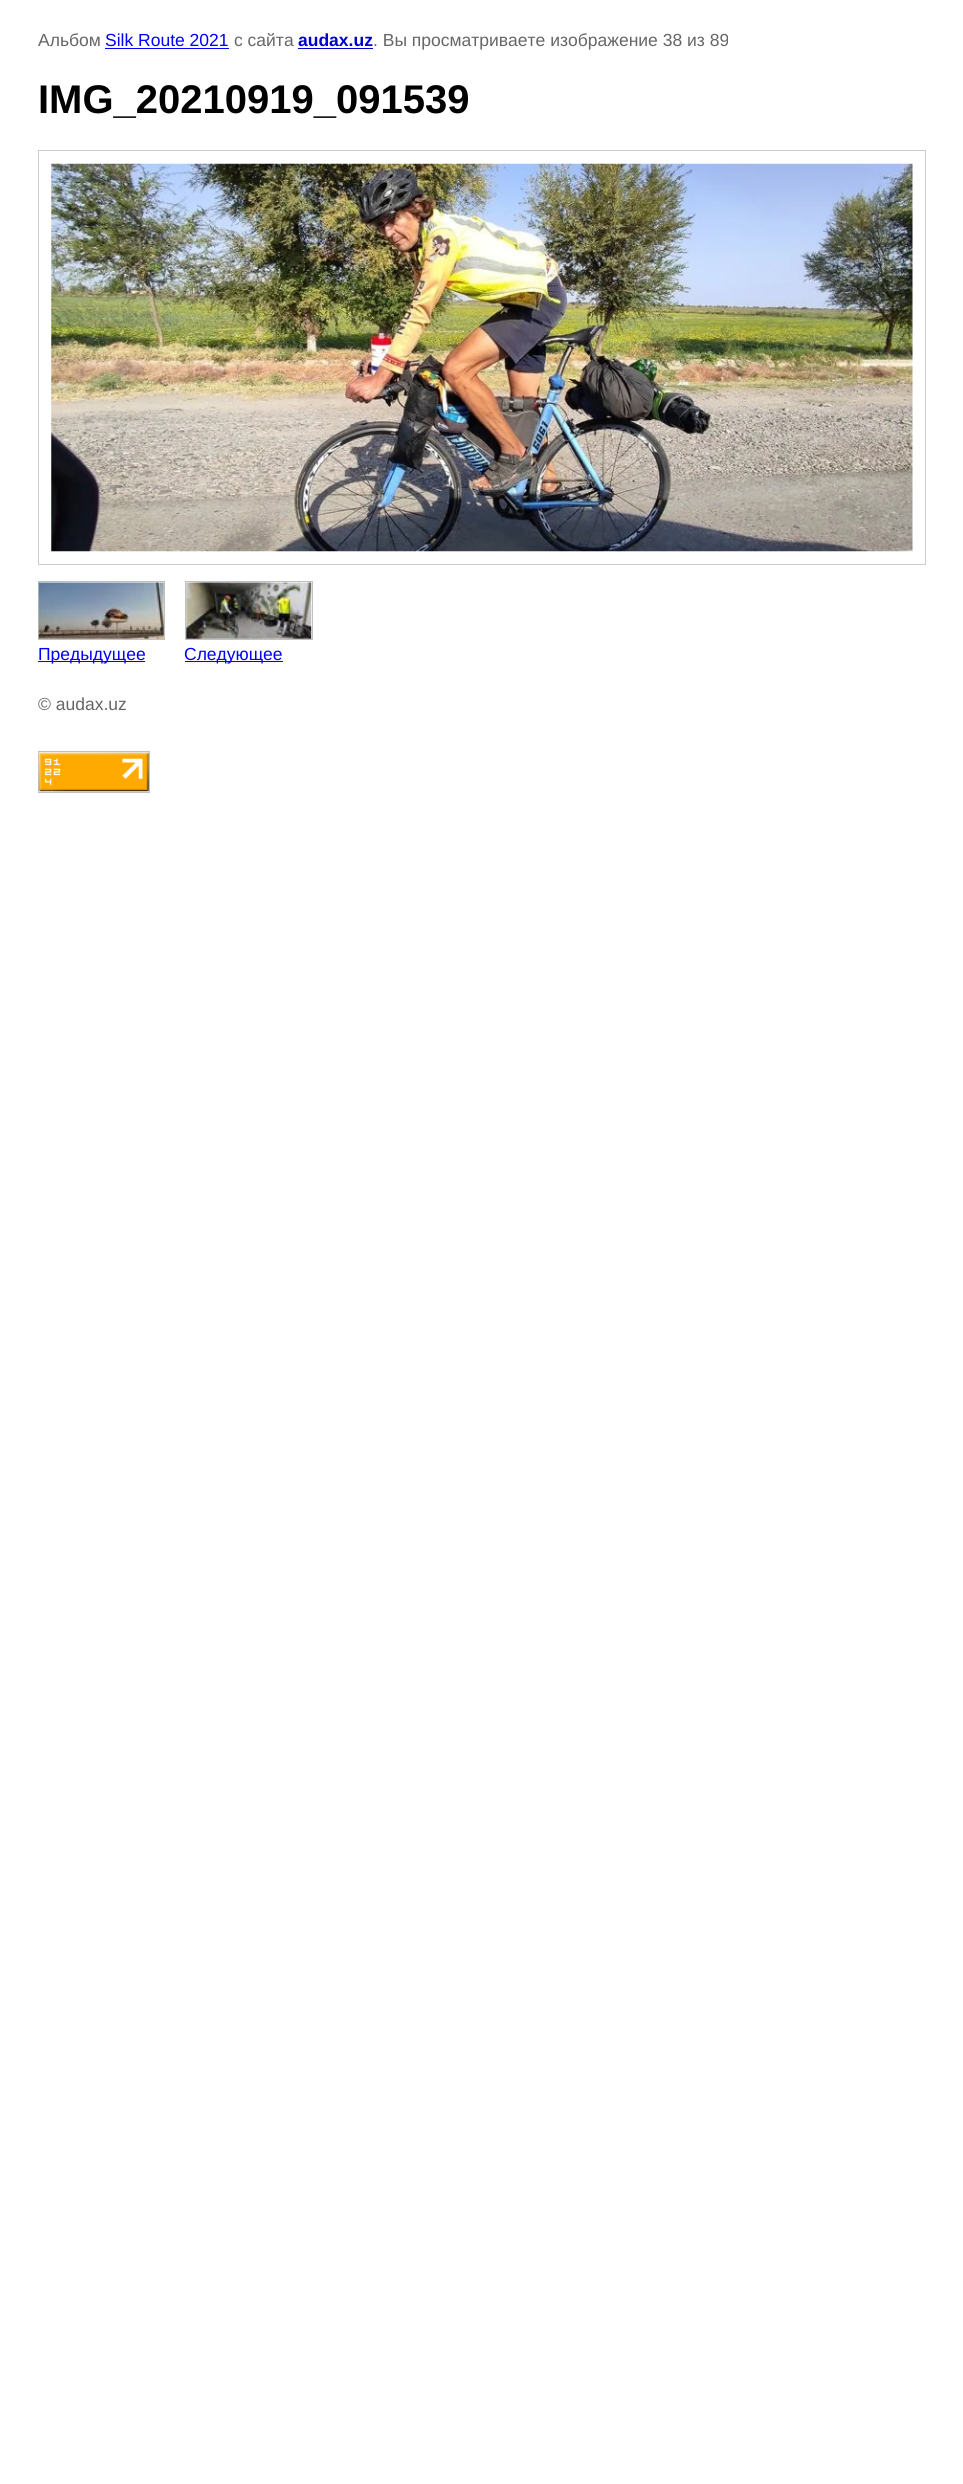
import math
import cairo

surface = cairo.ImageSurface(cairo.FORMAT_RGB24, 963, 2484)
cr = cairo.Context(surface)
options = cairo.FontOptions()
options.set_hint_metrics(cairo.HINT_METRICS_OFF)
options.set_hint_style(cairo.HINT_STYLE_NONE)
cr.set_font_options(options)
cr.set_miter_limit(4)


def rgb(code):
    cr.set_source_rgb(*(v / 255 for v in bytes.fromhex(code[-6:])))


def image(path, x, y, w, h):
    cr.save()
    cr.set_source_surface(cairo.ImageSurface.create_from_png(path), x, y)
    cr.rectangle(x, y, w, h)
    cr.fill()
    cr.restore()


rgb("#ffffff")
cr.paint()
rgb("#0000ff")
cr.rectangle(105, 48, 124, 1)
cr.fill()
rgb("#0000cc")
cr.rectangle(298, 48, 75, 1)
cr.fill()
cr.rectangle(38.5, 150.5, 887, 414)
rgb("#cccccc")
cr.set_line_width(1)
cr.stroke()
image("img/1.png", 51, 163, 862, 389)
cr.rectangle(38.5, 581.5, 126, 58)
rgb("#c0c0c0")
cr.stroke()
image("img/2.png", 38, 582, 126, 57)
rgb("#0000ff")
cr.rectangle(38, 661, 107, 1)
cr.fill()
cr.rectangle(185.5, 581.5, 127, 58)
rgb("#c0c0c0")
cr.stroke()
image("img/3.png", 186, 582, 126, 57)
rgb("#0000ff")
cr.rectangle(185, 661, 98, 1)
cr.fill()
cr.rectangle(38.5, 751.5, 111, 41)
rgb("#c0c0c0")
cr.stroke()
image("img/4.png", 38, 752, 111, 40)
cr.select_font_face("Liberation Sans")
cr.set_font_size(17.5)
rgb("#666666")
cr.move_to(38, 46)
cr.show_text("Альбом")
rgb("#0000ff")
cr.move_to(105, 46)
cr.show_text("Silk Route 2021")
rgb("#666666")
cr.move_to(234, 46)
cr.show_text("с сайта")
cr.select_font_face("Liberation Sans", cairo.FONT_SLANT_NORMAL, cairo.FONT_WEIGHT_BOLD)
rgb("#0000cc")
cr.move_to(298, 46)
cr.show_text("audax.uz")
cr.select_font_face("Liberation Sans")
rgb("#666666")
cr.move_to(373, 46)
cr.show_text(". Вы просматриваете изображение 38 из 89")
cr.select_font_face("Liberation Sans", cairo.FONT_SLANT_NORMAL, cairo.FONT_WEIGHT_BOLD)
cr.set_font_size(40)
rgb("#000000")
cr.move_to(38, 113)
cr.show_text("IMG_20210919_091539")
cr.select_font_face("Liberation Sans")
cr.set_font_size(17.5)
rgb("#0000ff")
cr.move_to(38, 660)
cr.show_text("Предыдущее")
cr.move_to(184, 660)
cr.show_text("Следующее")
rgb("#666666")
cr.move_to(38, 710)
cr.show_text("© audax.uz")
surface.write_to_png("page.png")
